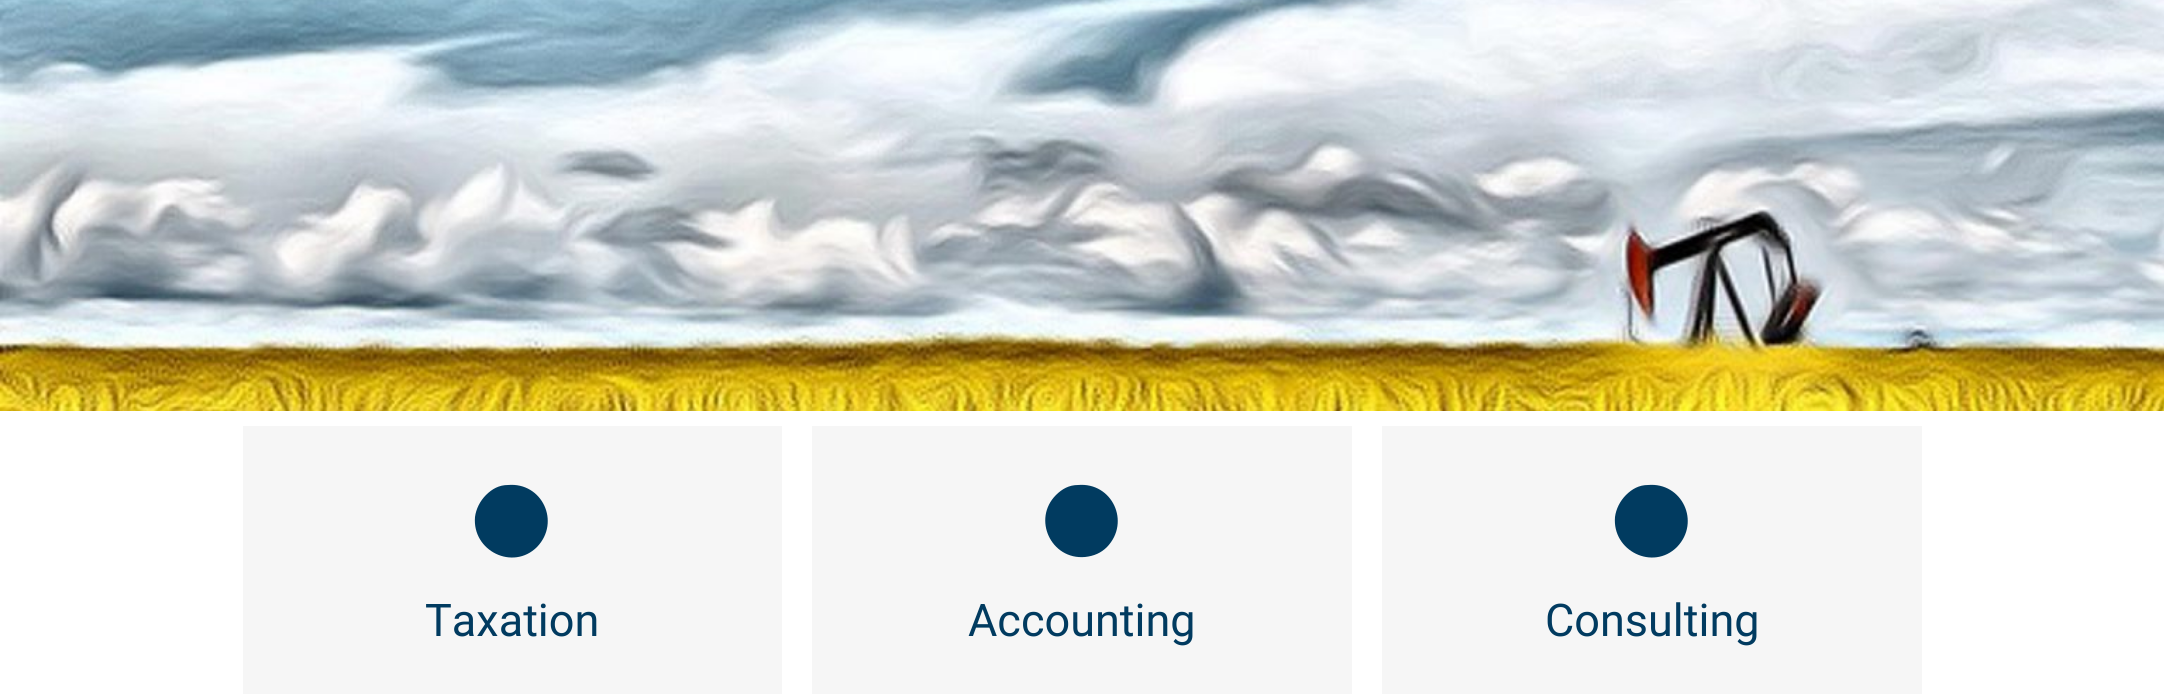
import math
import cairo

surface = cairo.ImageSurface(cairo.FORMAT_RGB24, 2164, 694)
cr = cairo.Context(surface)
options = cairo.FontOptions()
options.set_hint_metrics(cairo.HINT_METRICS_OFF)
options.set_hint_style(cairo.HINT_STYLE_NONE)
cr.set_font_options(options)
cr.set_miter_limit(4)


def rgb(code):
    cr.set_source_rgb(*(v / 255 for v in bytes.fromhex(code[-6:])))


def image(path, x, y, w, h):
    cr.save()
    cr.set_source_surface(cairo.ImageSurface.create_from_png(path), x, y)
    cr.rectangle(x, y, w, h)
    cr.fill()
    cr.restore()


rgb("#ffffff")
cr.paint()
image("img/1.png", 0, 0, 2164, 411)
rgb("#f6f6f6")
cr.rectangle(243, 426, 539, 268)
cr.fill()
rgb("#013b60")
cr.new_path()
cr.move_to(486, 495)
cr.curve_to(492, 489, 499, 485, 508, 485)
cr.curve_to(542, 482, 561, 522, 537, 547)
cr.curve_to(513, 571, 472, 551, 475, 517)
cr.curve_to(476, 509, 480, 501, 486, 495)
cr.close_path()
cr.fill()
rgb("#f6f6f6")
cr.rectangle(812, 426, 540, 268)
cr.fill()
rgb("#013b60")
cr.new_path()
cr.move_to(1056, 495)
cr.curve_to(1062, 489, 1069, 485, 1078, 485)
cr.curve_to(1112, 482, 1131, 522, 1107, 547)
cr.curve_to(1101, 553, 1094, 556, 1085, 557)
cr.curve_to(1051, 560, 1032, 519, 1056, 495)
cr.close_path()
cr.fill()
rgb("#f6f6f6")
cr.rectangle(1382, 426, 540, 268)
cr.fill()
rgb("#013b60")
cr.new_path()
cr.move_to(1626, 495)
cr.curve_to(1632, 489, 1639, 485, 1648, 485)
cr.curve_to(1682, 482, 1701, 522, 1677, 547)
cr.curve_to(1653, 571, 1612, 551, 1615, 517)
cr.curve_to(1616, 509, 1620, 501, 1626, 495)
cr.close_path()
cr.fill()
cr.select_font_face("Roboto")
cr.set_font_size(45)
for x, y, s in [
    (425, 636, "Taxation"),
    (968, 636, "Accounting"),
    (1545, 636, "Consulting"),
]:
    cr.move_to(x, y)
    cr.show_text(s)
surface.write_to_png("page.png")
